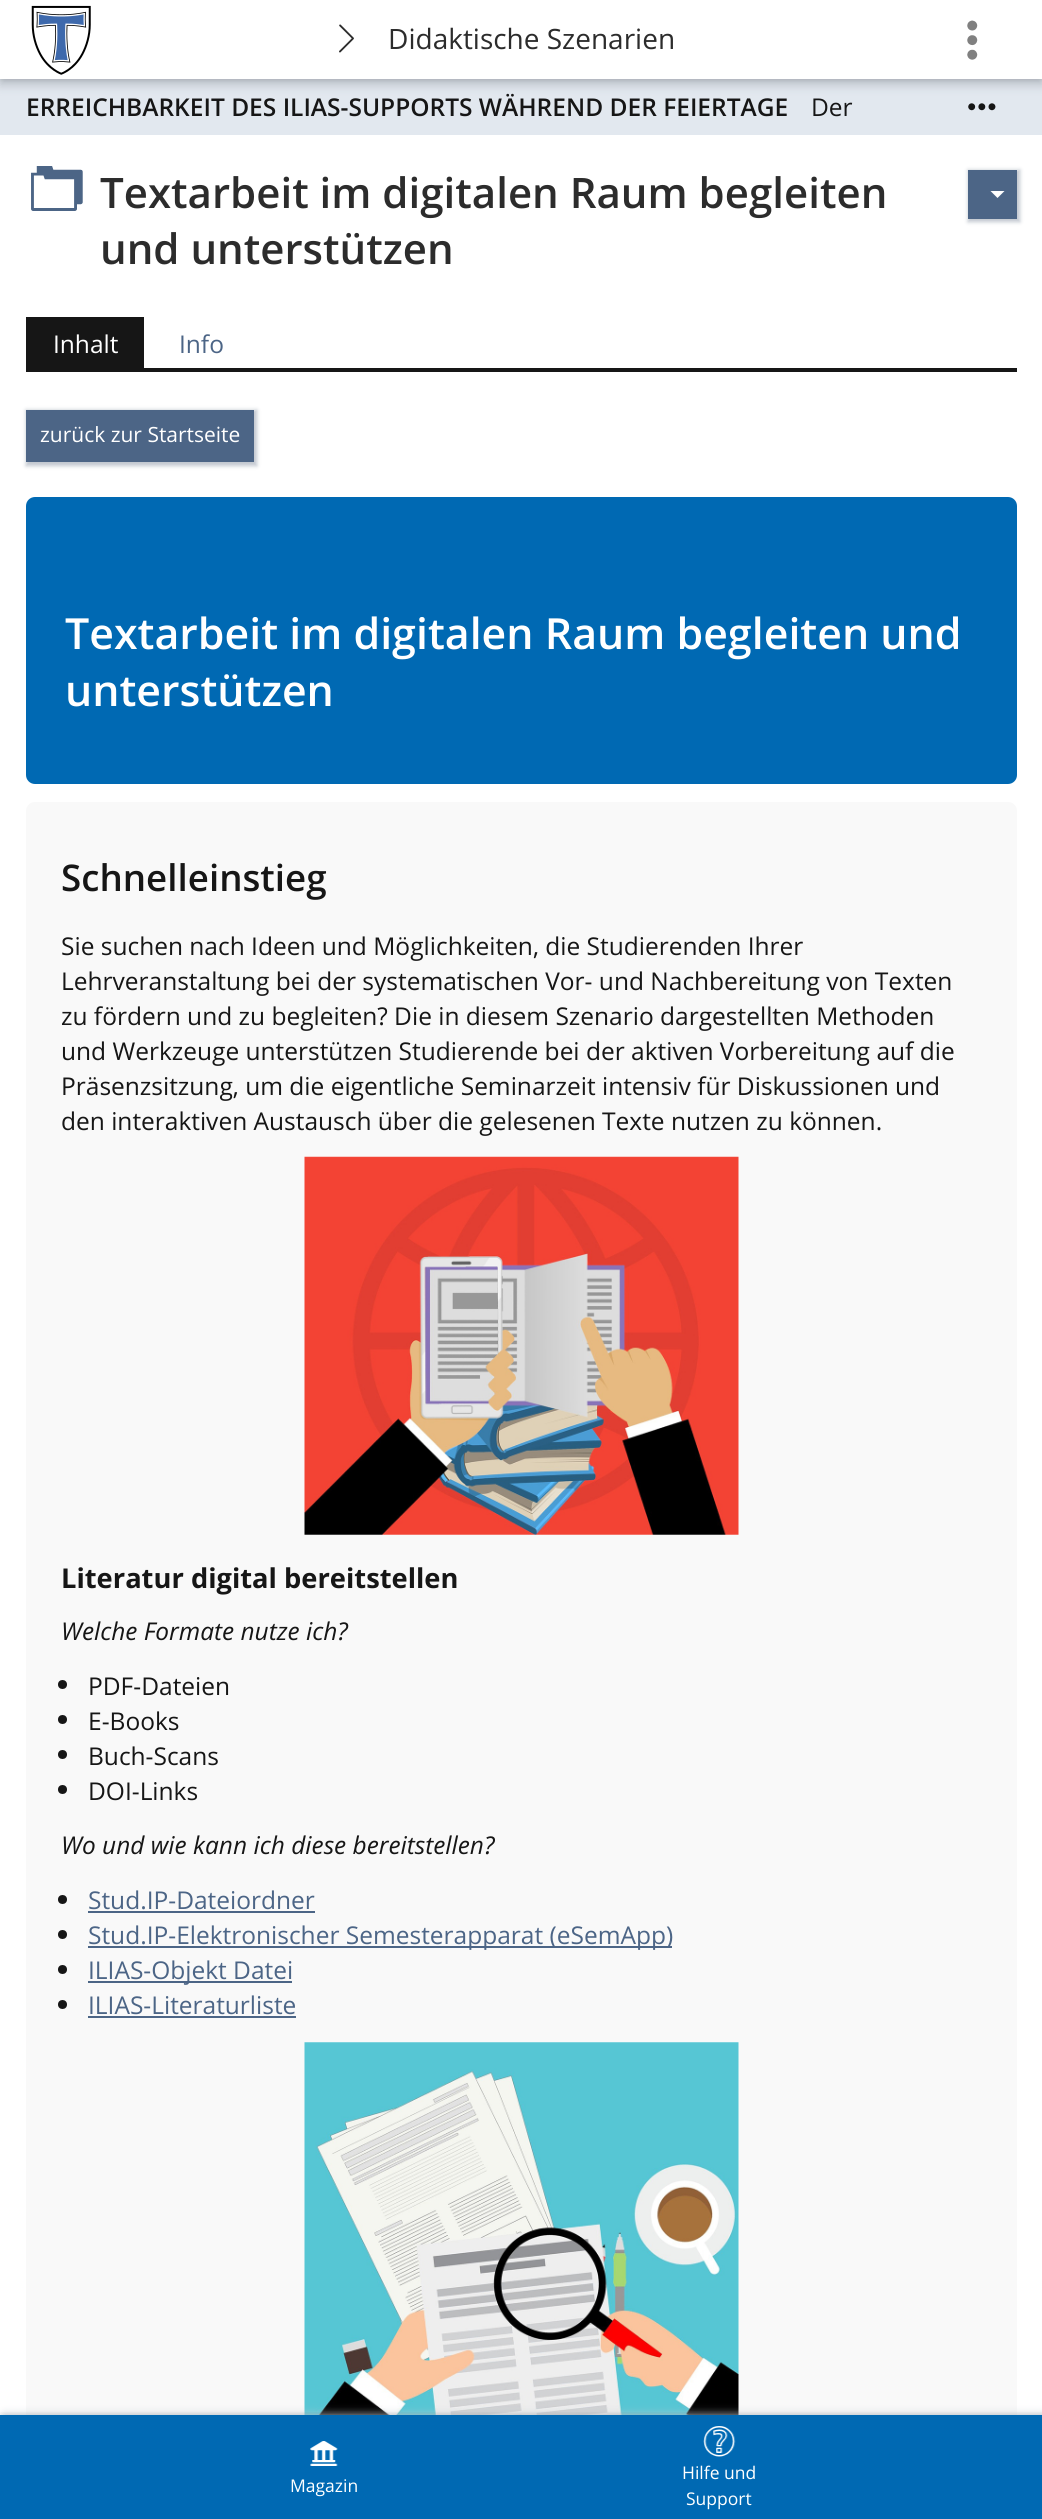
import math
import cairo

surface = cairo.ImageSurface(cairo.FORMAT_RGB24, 1042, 2519)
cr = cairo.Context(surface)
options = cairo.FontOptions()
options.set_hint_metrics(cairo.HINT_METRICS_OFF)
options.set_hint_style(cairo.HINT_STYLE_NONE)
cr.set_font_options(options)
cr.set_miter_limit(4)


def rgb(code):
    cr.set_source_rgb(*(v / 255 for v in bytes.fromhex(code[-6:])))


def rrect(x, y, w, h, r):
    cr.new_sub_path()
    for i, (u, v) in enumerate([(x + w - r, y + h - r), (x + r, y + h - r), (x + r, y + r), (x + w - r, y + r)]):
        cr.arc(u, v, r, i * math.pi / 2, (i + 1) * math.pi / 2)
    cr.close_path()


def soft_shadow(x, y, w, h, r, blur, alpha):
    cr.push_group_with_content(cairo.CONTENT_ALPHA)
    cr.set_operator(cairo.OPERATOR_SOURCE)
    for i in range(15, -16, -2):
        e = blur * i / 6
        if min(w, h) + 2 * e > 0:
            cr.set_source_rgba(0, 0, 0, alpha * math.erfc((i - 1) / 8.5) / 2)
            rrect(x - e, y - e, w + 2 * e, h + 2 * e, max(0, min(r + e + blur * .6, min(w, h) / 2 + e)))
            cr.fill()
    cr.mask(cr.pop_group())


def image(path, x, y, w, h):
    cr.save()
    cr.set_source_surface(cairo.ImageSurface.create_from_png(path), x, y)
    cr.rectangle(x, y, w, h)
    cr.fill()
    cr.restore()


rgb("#ffffff")
cr.paint()
rgb("#e2e8ef")
cr.rectangle(0, 79, 1042, 56)
cr.fill()
rgb("#c1c7cf")
soft_shadow(0, 7, 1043, 79, 0, 4.5, 1)
rgb("#000000")
soft_shadow(0, 2, 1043, 79, 0, 2, 0.1)
rgb("#ffffff")
cr.rectangle(0, 0, 1042, 79)
cr.fill()
image("img/1.png", 31, 5, 60, 70)
image("img/2.png", 339, 24, 15, 29)
image("img/3.png", 967, 20, 11, 40)
image("img/4.png", 968, 103, 28, 8)
image("img/5.png", 31, 166, 52, 45)
rgb("#c1c7cf")
soft_shadow(968, 170, 52, 52, 0, 2, 1)
rgb("#4c6586")
cr.rectangle(968, 170, 49, 49)
cr.fill()
rgb("#ffffff")
cr.new_path()
cr.move_to(990.5, 191)
cr.line_to(1004.5, 191)
cr.line_to(997.5, 198)
cr.close_path()
cr.fill()
rgb("#161616")
cr.rectangle(26, 368, 991, 4)
cr.fill()
cr.rectangle(26, 317, 118, 51)
cr.fill()
rgb("#c1c7cf")
soft_shadow(26, 410, 231, 56, 0, 2, 1)
rgb("#4c6586")
cr.rectangle(26, 410, 228, 52)
cr.fill()
rgb("#0069b3")
rrect(28, 499, 987, 283, 7)
cr.fill_preserve()
cr.set_line_width(4)
cr.stroke()
rgb("#f9f9f9")
rrect(26, 802, 991, 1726, 9)
cr.fill()
image("img/6.png", 304, 1156, 435, 379)
rgb("#161616")
cr.arc(62.5, 1684.5, 4.5, 0, 2 * math.pi)
cr.fill()
cr.arc(62.5, 1719.5, 4.5, 0, 2 * math.pi)
cr.fill()
cr.arc(62.5, 1754.5, 4.5, 0, 2 * math.pi)
cr.fill()
cr.arc(62.5, 1789.5, 4.5, 0, 2 * math.pi)
cr.fill()
cr.arc(62.5, 1899.5, 4.5, 0, 2 * math.pi)
cr.fill()
rgb("#4c6586")
cr.rectangle(88, 1911, 227, 2)
cr.fill()
rgb("#161616")
cr.arc(62.5, 1934.5, 4.5, 0, 2 * math.pi)
cr.fill()
rgb("#4c6586")
cr.rectangle(88, 1946, 584, 2)
cr.fill()
rgb("#161616")
cr.arc(62.5, 1969.5, 4.5, 0, 2 * math.pi)
cr.fill()
rgb("#4c6586")
cr.rectangle(88, 1981, 204, 2)
cr.fill()
rgb("#161616")
cr.arc(62.5, 2004.5, 4.5, 0, 2 * math.pi)
cr.fill()
rgb("#4c6586")
cr.rectangle(88, 2016, 208, 2)
cr.fill()
image("img/7.png", 304, 2042, 435, 373)
rgb("#c1c7cf")
soft_shadow(4, 2415, 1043, 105, 0, 4.5, 1)
rgb("#0069b3")
cr.rectangle(0, 2415, 1042, 104)
cr.fill()
cr.save()
cr.rectangle(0, 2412, 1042, 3)
cr.clip()
rgb("#000000")
soft_shadow(0, 2415, 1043, 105, 0, 3.5, 0.1)
cr.restore()
image("img/8.png", 310, 2441, 28, 25)
image("img/9.png", 703, 2426, 33, 31)
cr.select_font_face("Open Sans")
cr.set_font_size(28)
rgb("#2c2c2c")
cr.move_to(388, 49)
cr.show_text("Didaktische Szenarien")
cr.select_font_face("Open Sans SemiBold")
cr.set_font_size(24.5)
rgb("#161616")
cr.move_to(26, 116)
cr.show_text("ERREICHBARKEIT DES ILIAS-SUPPORTS WÄHREND DER FEIERTAGE")
cr.select_font_face("Open Sans")
cr.move_to(811, 116)
cr.show_text("Der")
cr.select_font_face("Open Sans SemiBold")
cr.set_font_size(42)
rgb("#2c2c2c")
cr.move_to(100, 208)
cr.show_text("Textarbeit im digitalen Raum begleiten")
cr.move_to(100, 264)
cr.show_text("und unterstützen")
cr.select_font_face("Open Sans")
cr.set_font_size(24.5)
rgb("#ffffff")
cr.move_to(53, 353)
cr.show_text("Inhalt")
rgb("#4c6586")
cr.move_to(179, 353)
cr.show_text("Info")
cr.set_font_size(21)
rgb("#ffffff")
cr.move_to(40, 442)
cr.show_text("zurück zur Startseite")
cr.select_font_face("Open Sans SemiBold")
cr.set_font_size(42.9)
cr.move_to(65, 649)
cr.show_text("Textarbeit im digitalen Raum begleiten und")
cr.move_to(65, 706)
cr.show_text("unterstützen")
cr.set_font_size(36.75)
rgb("#161616")
cr.move_to(61, 891)
cr.show_text("Schnelleinstieg")
cr.select_font_face("Open Sans")
cr.set_font_size(24.5)
for x, y, s in [
    (61, 955, "Sie suchen nach Ideen und Möglichkeiten, die Studierenden Ihrer"),
    (61, 990, "Lehrveranstaltung bei der systematischen Vor- und Nachbereitung von Texten"),
    (61, 1025, "zu fördern und zu begleiten? Die in diesem Szenario dargestellten Methoden"),
    (61, 1060, "und Werkzeuge unterstützen Studierende bei der aktiven Vorbereitung auf die"),
    (61, 1095, "Präsenzsitzung, um die eigentliche Seminarzeit intensiv für Diskussionen und"),
    (61, 1130, "den interaktiven Austausch über die gelesenen Texte nutzen zu können."),
]:
    cr.move_to(x, y)
    cr.show_text(s)
cr.select_font_face("Open Sans", cairo.FONT_SLANT_NORMAL, cairo.FONT_WEIGHT_BOLD)
cr.set_font_size(27.3)
cr.move_to(61, 1588)
cr.show_text("Literatur digital bereitstellen")
cr.select_font_face("Open Sans", cairo.FONT_SLANT_ITALIC)
cr.set_font_size(24.5)
cr.move_to(61, 1640)
cr.show_text("Welche Formate nutze ich?")
cr.select_font_face("Open Sans")
for x, y, s in [
    (88, 1695, "PDF-Dateien"),
    (88, 1730, "E-Books"),
    (88, 1765, "Buch-Scans"),
    (88, 1800, "DOI-Links"),
]:
    cr.move_to(x, y)
    cr.show_text(s)
cr.select_font_face("Open Sans", cairo.FONT_SLANT_ITALIC)
cr.move_to(61, 1854)
cr.show_text("Wo und wie kann ich diese bereitstellen?")
cr.select_font_face("Open Sans")
rgb("#4c6586")
for x, y, s in [
    (88, 1909, "Stud.IP-Dateiordner"),
    (88, 1944, "Stud.IP-Elektronischer Semesterapparat (eSemApp)"),
    (88, 1979, "ILIAS-Objekt Datei"),
    (88, 2014, "ILIAS-Literaturliste"),
]:
    cr.move_to(x, y)
    cr.show_text(s)
cr.set_font_size(17.5)
rgb("#ffffff")
for x, y, s in [
    (290, 2492, "Magazin"),
    (682, 2479, "Hilfe und"),
    (686, 2505, "Support"),
]:
    cr.move_to(x, y)
    cr.show_text(s)
surface.write_to_png("page.png")
